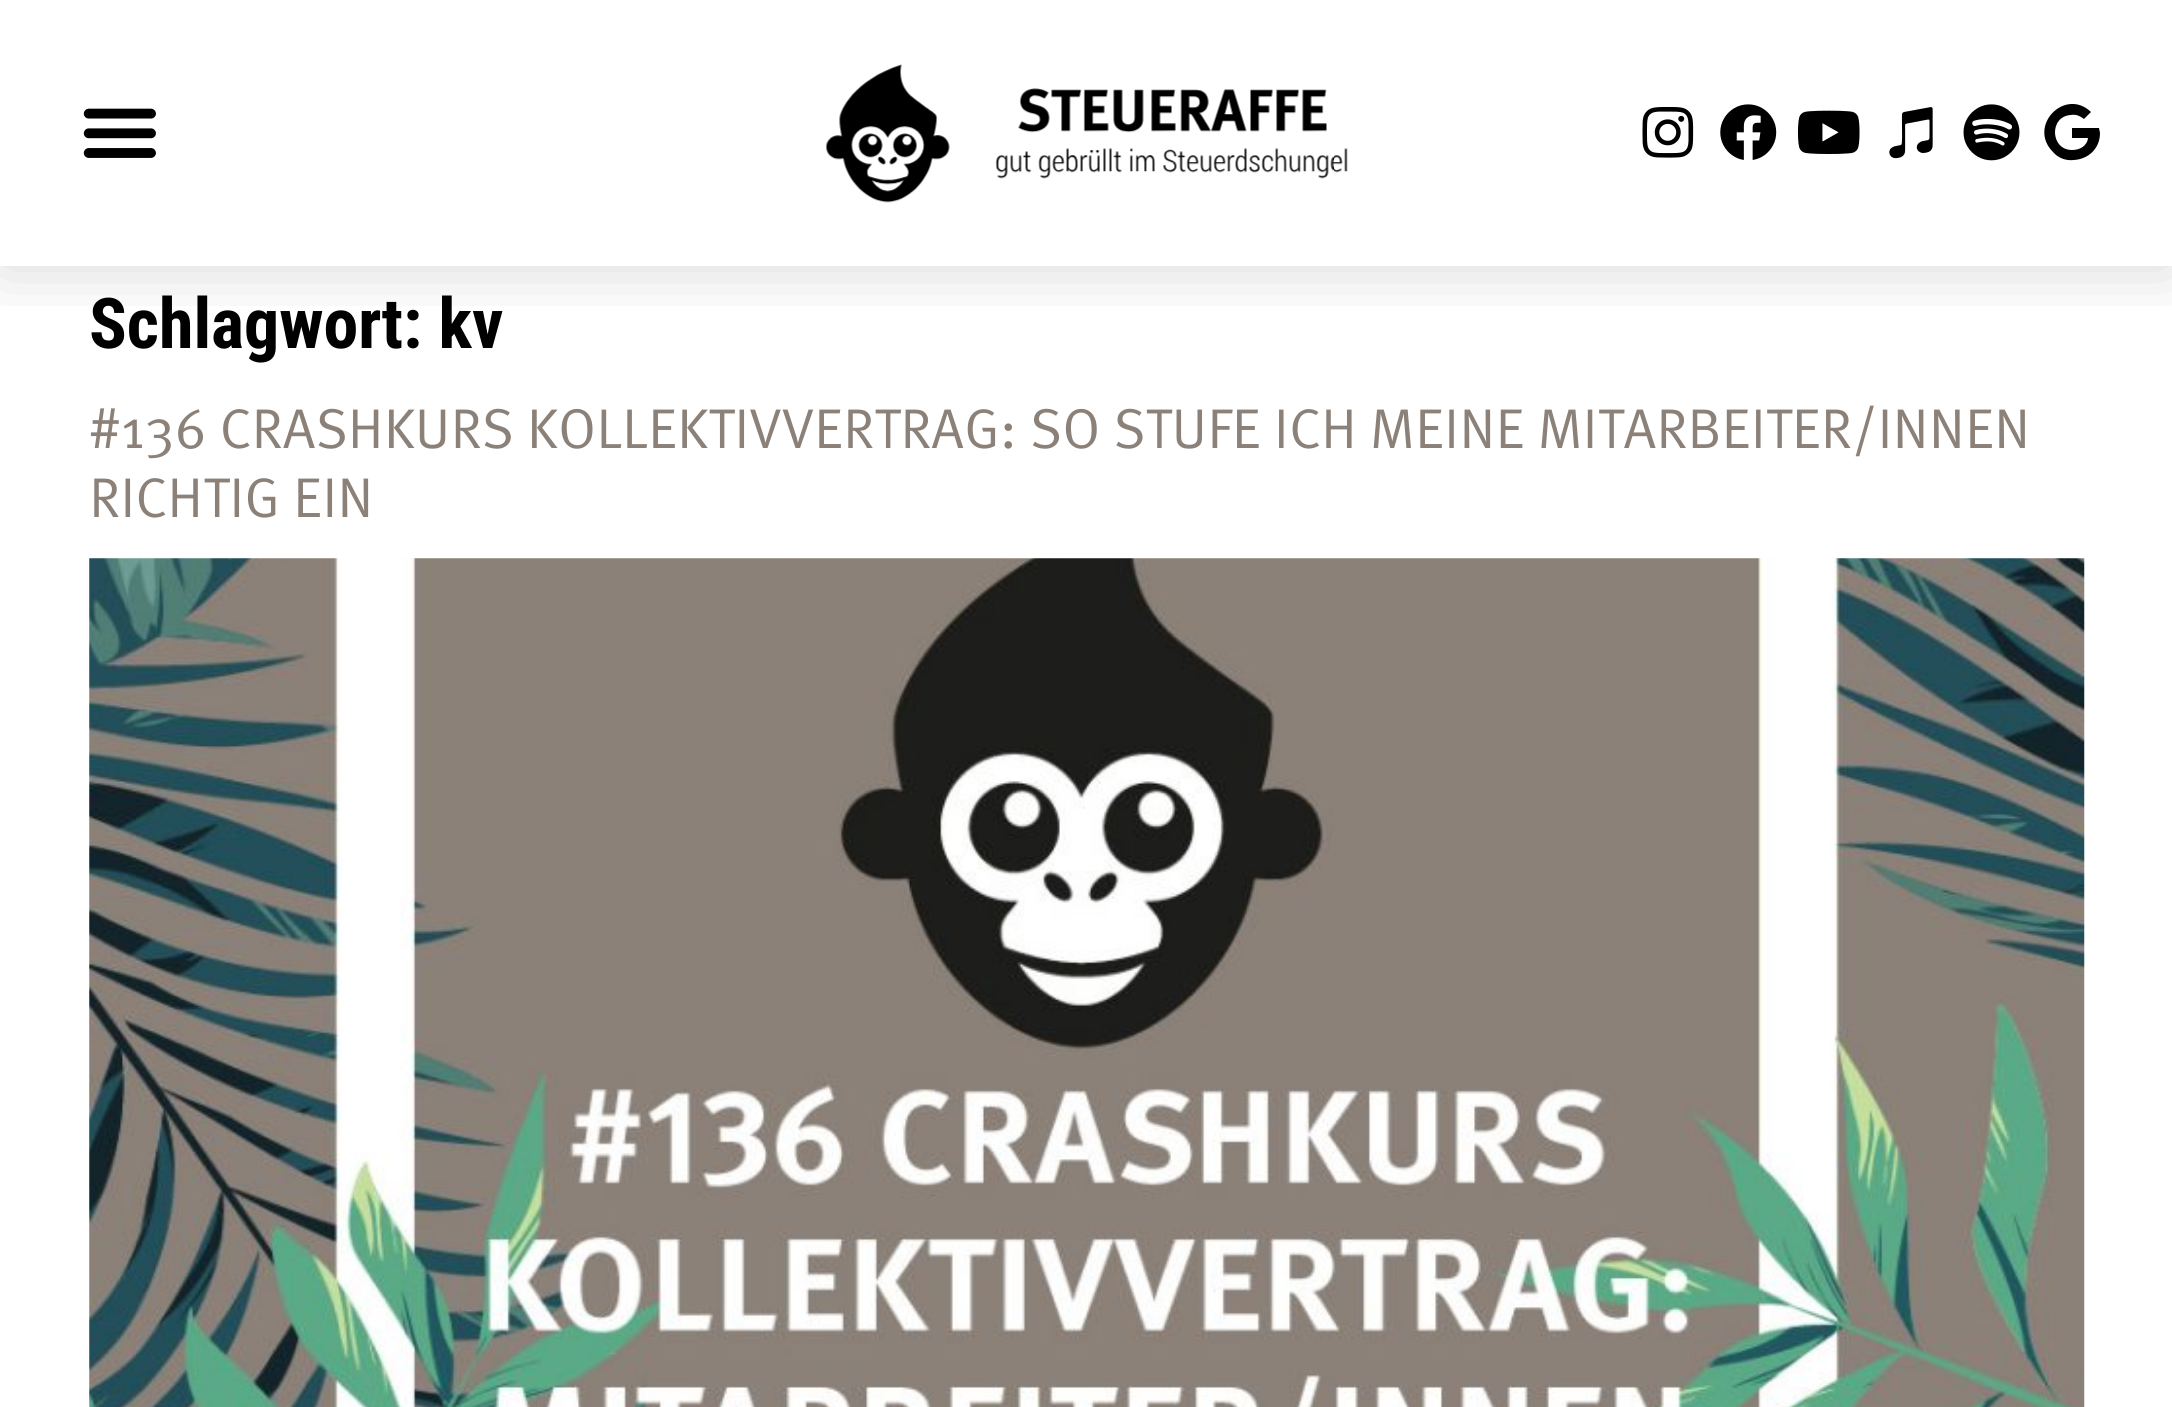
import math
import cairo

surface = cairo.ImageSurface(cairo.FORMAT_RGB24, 2172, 1407)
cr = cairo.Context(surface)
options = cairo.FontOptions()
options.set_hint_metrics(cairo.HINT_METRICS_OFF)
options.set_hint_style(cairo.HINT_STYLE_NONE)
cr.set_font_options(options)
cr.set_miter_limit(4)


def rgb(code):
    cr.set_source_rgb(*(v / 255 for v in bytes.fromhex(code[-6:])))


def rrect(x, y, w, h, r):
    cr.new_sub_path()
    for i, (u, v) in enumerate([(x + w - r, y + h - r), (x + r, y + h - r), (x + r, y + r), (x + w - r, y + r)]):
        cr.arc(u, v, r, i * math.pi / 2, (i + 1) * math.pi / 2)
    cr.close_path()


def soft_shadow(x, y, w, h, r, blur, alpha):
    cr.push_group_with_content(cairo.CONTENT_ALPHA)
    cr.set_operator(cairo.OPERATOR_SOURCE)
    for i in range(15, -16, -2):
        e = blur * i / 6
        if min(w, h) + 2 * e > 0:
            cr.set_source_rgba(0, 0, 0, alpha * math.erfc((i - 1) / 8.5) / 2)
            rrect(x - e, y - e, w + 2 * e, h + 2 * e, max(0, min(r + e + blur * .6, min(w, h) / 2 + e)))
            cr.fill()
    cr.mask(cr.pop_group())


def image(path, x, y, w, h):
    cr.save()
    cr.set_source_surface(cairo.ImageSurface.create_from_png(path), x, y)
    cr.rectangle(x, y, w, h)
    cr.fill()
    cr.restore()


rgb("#ffffff")
cr.paint()
cr.save()
cr.rectangle(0, 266, 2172, 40)
cr.clip()
rgb("#000000")
soft_shadow(0, 0, 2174, 266, 0, 35, 0.16)
cr.restore()
image("img/1.png", 83, 108, 73, 50)
image("img/2.png", 825, 64, 523, 139)
image("img/3.png", 1642, 106, 52, 52)
image("img/4.png", 1720, 104, 57, 56)
image("img/5.png", 1797, 110, 63, 44)
image("img/6.png", 1889, 107, 44, 52)
image("img/7.png", 1963, 104, 57, 57)
rgb("#000000")
cr.new_path()
cr.move_to(2100, 133)
cr.curve_to(2100, 148, 2089, 159, 2074, 160)
cr.curve_to(2066, 161, 2058, 158, 2053, 152)
cr.curve_to(2027, 126, 2065, 87, 2091, 112)
cr.line_to(2084, 119)
cr.curve_to(2080, 116, 2076, 114, 2071, 115)
cr.curve_to(2049, 116, 2050, 150, 2072, 150)
cr.curve_to(2080, 150, 2087, 146, 2088, 138)
cr.line_to(2072, 138)
cr.line_to(2072, 128)
cr.line_to(2099, 128)
cr.close_path()
cr.fill()
image("img/8.png", 89, 558, 1996, 849)
cr.select_font_face("Roboto Condensed", cairo.FONT_SLANT_NORMAL, cairo.FONT_WEIGHT_BOLD)
cr.set_font_size(70)
cr.move_to(89, 348)
cr.show_text("Schlagwort: kv")
cr.select_font_face("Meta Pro")
cr.set_font_size(56)
rgb("#8b8178")
cr.move_to(89, 448)
cr.show_text("#136 CRASHKURS KOLLEKTIVVERTRAG: SO STUFE ICH MEINE MITARBEITER/INNEN")
cr.move_to(89, 517)
cr.show_text("RICHTIG EIN")
surface.write_to_png("page.png")
